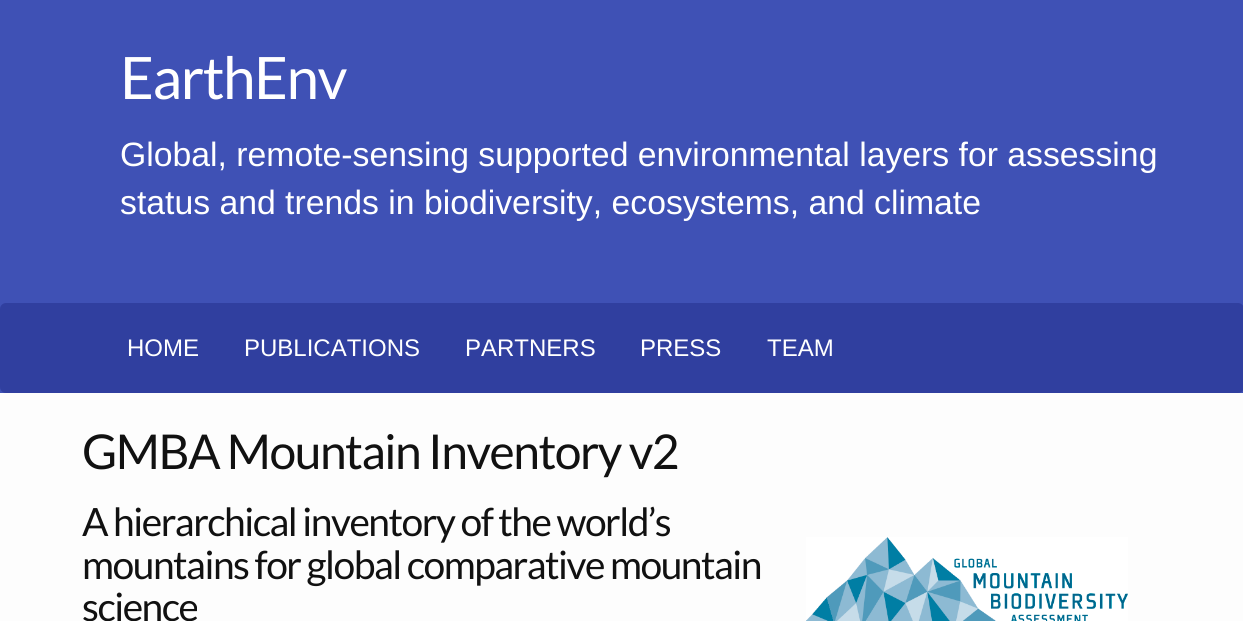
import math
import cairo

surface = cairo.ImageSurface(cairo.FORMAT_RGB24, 1243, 621)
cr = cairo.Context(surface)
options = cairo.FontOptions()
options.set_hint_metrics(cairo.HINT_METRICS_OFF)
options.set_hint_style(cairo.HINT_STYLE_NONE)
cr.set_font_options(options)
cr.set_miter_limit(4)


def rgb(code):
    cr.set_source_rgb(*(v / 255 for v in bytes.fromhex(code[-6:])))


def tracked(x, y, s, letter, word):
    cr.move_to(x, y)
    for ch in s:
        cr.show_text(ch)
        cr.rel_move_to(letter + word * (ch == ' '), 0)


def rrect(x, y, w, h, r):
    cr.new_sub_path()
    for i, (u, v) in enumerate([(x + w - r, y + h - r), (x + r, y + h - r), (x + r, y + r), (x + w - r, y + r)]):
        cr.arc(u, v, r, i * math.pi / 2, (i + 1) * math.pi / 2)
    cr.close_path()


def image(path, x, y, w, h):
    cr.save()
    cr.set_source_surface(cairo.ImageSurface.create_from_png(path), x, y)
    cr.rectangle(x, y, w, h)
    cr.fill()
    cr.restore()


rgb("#fdfdfd")
cr.paint()
rgb("#3f51b5")
cr.rectangle(0, 0, 1243, 393)
cr.fill()
rgb("#303f9f")
rrect(0, 303, 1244, 90, 6)
cr.fill()
image("img/1.png", 806, 537, 322, 84)
cr.select_font_face("Lato")
cr.set_font_size(58.5)
rgb("#ffffff")
tracked(120, 99, "EarthEnv", -1.5, 0)
cr.select_font_face("Liberation Sans")
cr.set_font_size(33.75)
cr.move_to(120, 166)
cr.show_text("Global, remote-sensing supported environmental layers for assessing")
cr.move_to(120, 214)
cr.show_text("status and trends in biodiversity, ecosystems, and climate")
cr.set_font_size(24)
for x, y, s in [
    (127, 356, "HOME"),
    (244, 356, "PUBLICATIONS"),
    (465, 356, "PARTNERS"),
    (640, 356, "PRESS"),
    (767, 356, "TEAM"),
]:
    cr.move_to(x, y)
    cr.show_text(s)
cr.select_font_face("Lato")
cr.set_font_size(48)
rgb("#111111")
tracked(82, 469, "GMBA Mountain Inventory v2", -1.5, 0)
cr.set_font_size(39)
for x, y, s in [
    (82, 536, "A hierarchical inventory of the world’s"),
    (82, 579, "mountains for global comparative mountain"),
    (82, 621, "science"),
]:
    tracked(x, y, s, -1.5, 0)
surface.write_to_png("page.png")
